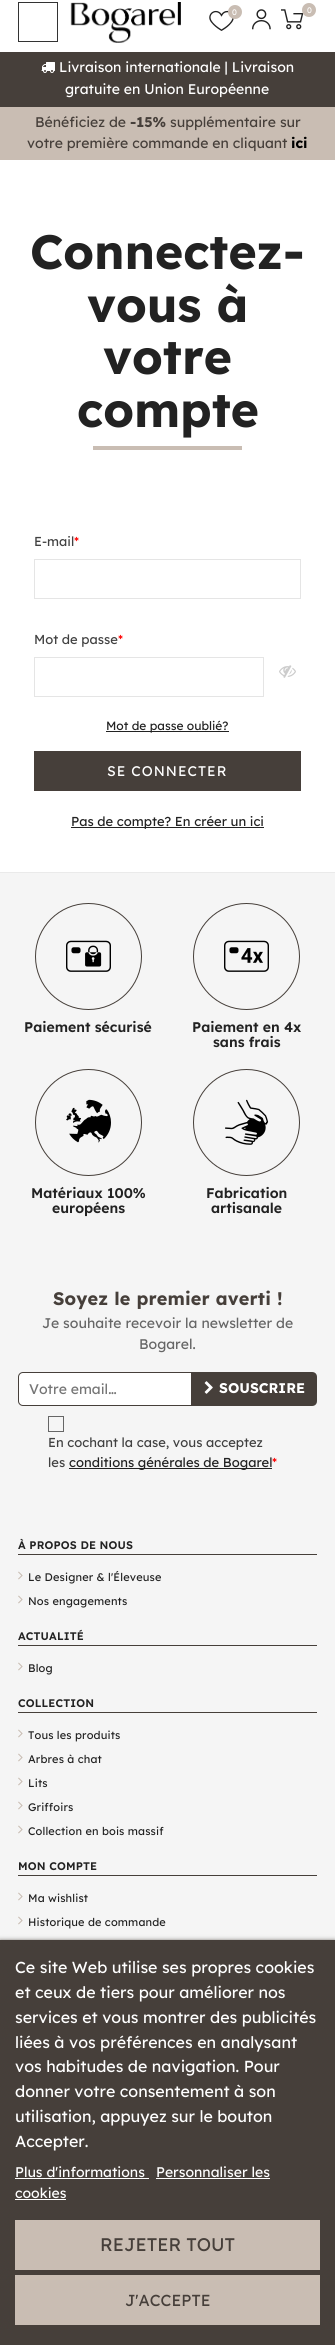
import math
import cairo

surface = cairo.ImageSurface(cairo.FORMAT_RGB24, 335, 2345)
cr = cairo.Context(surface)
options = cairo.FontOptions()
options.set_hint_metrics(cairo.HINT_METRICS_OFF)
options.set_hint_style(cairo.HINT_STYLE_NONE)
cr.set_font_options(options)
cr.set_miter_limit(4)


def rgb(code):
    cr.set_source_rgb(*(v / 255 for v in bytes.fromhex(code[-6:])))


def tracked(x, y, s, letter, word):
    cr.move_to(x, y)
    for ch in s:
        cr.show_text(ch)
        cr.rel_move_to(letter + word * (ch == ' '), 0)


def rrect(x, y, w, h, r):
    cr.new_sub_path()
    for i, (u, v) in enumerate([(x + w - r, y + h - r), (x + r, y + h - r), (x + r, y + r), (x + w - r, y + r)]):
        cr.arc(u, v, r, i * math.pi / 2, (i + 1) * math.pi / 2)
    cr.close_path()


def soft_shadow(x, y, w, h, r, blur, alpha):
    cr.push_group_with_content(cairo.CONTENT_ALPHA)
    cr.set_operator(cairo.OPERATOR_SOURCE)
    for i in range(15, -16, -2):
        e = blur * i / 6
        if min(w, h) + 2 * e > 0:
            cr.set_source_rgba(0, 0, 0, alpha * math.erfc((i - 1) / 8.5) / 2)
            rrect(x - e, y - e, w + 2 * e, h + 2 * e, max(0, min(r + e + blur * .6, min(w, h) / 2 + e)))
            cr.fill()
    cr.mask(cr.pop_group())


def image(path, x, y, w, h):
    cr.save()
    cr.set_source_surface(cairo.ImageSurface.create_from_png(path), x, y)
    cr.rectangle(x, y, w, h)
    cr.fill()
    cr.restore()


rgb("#ffffff")
cr.paint()
cr.rectangle(18.5, 2.5, 39, 39)
rgb("#333333")
cr.set_line_width(1)
cr.stroke()
image("img/1.png", 70, 2, 111, 41)
image("img/2.png", 209, 10, 25, 21)
rgb("#c9bdb3")
cr.arc(235, 12, 7, 0, 2 * math.pi)
cr.fill()
image("img/3.png", 252, 9, 19, 21)
image("img/4.png", 281, 9, 23, 21)
cr.arc(309, 10, 7, 0, 2 * math.pi)
cr.fill()
rgb("#463f3a")
cr.rectangle(0, 52, 335, 55)
cr.fill()
image("img/5.png", 41, 62, 14, 11)
rgb("#c9bdb3")
cr.rectangle(0, 107, 335, 53)
cr.fill()
cr.rectangle(93, 446, 149, 4)
cr.fill()
cr.rectangle(34.5, 559.5, 266, 39)
rgb("#e5e5e5")
cr.stroke()
cr.rectangle(34.5, 657.5, 229, 39)
cr.stroke()
image("img/6.png", 279, 665, 17, 13)
for x, y, w, h, color in [
    (106, 731, 123, 1, "#222222"),
    (34, 751, 267, 40, "#463f3a"),
    (71, 827, 193, 1, "#222222"),
    (0, 873, 335, 1067, "#f5f5f5"),
    (0, 872, 335, 1, "#eaeaea"),
]:
    rgb(color)
    cr.rectangle(x, y, w, h)
    cr.fill()
cr.arc(88.5, 956.5, 53, 0, 2 * math.pi)
rgb("#463f3a")
cr.stroke()
image("img/7.png", 66, 940, 45, 32)
cr.arc(246.5, 956.5, 53, 0, 2 * math.pi)
cr.stroke()
image("img/8.png", 224, 940, 45, 32)
cr.arc(88.5, 1122.5, 53, 0, 2 * math.pi)
cr.stroke()
image("img/9.png", 66, 1099, 45, 44)
cr.arc(246.5, 1122.5, 53, 0, 2 * math.pi)
cr.stroke()
image("img/10.png", 225, 1099, 44, 46)
rgb("#ffffff")
cr.new_path()
cr.move_to(23, 1372.5)
cr.line_to(191.5, 1372.5)
cr.line_to(191.5, 1405.5)
cr.line_to(23, 1405.5)
cr.curve_to(20.5, 1405.5, 18.5, 1403.5, 18.5, 1401)
cr.line_to(18.5, 1377)
cr.curve_to(18.5, 1374.5, 20.5, 1372.5, 23, 1372.5)
cr.close_path()
cr.fill_preserve()
rgb("#463f3a")
cr.stroke()
cr.new_path()
cr.move_to(192, 1372)
cr.line_to(312, 1372)
cr.curve_to(315, 1372, 317, 1374, 317, 1377)
cr.line_to(317, 1401)
cr.curve_to(317, 1404, 315, 1406, 312, 1406)
cr.line_to(192, 1406)
cr.close_path()
cr.fill()
image("img/11.png", 204, 1381, 9, 13)
cr.rectangle(48.5, 1416.5, 15, 15)
rgb("#666666")
cr.stroke()
rgb("#222222")
cr.rectangle(69, 1468, 203, 1)
cr.fill()
rgb("#463f3a")
cr.rectangle(18, 1554, 299, 1)
cr.fill()
image("img/12.png", 18, 1571, 5, 9)
image("img/12.png", 18, 1595, 5, 9)
cr.rectangle(18, 1645, 299, 1)
cr.fill()
image("img/12.png", 18, 1662, 5, 9)
cr.rectangle(18, 1712, 299, 1)
cr.fill()
image("img/12.png", 18, 1729, 5, 9)
image("img/12.png", 18, 1753, 5, 9)
image("img/12.png", 18, 1777, 5, 9)
image("img/12.png", 18, 1801, 5, 9)
image("img/12.png", 18, 1825, 5, 9)
cr.rectangle(18, 1875, 299, 1)
cr.fill()
image("img/12.png", 18, 1892, 5, 9)
image("img/12.png", 18, 1916, 5, 9)
rgb("#463f3a")
soft_shadow(0, 1941, 335, 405, 0, 2.5, 1)
for x, y, w, h, color in [
    (0, 1940, 335, 405, "#463f3a"),
    (15, 2178, 134, 1, "#ffffff"),
    (156, 2178, 114, 1, "#ffffff"),
    (15, 2199, 51, 1, "#ffffff"),
    (15, 2220, 305, 50, "#c9bdb3"),
    (15, 2275, 305, 50, "#c9bdb3"),
]:
    rgb(color)
    cr.rectangle(x, y, w, h)
    cr.fill()
cr.select_font_face("Lexend")
cr.set_font_size(8)
rgb("#ffffff")
cr.move_to(232, 15)
cr.show_text("0")
cr.move_to(307, 13)
cr.show_text("0")
cr.set_font_size(14)
cr.move_to(59, 72)
cr.show_text("Livraison internationale | Livraison")
cr.move_to(65, 94)
cr.show_text("gratuite en Union Européenne")
rgb("#463f3a")
cr.move_to(35, 127)
cr.show_text("Bénéficiez de")
cr.select_font_face("Lexend", cairo.FONT_SLANT_NORMAL, cairo.FONT_WEIGHT_BOLD)
cr.move_to(130, 127)
cr.show_text("-15%")
cr.select_font_face("Lexend")
cr.move_to(170, 127)
cr.show_text("supplémentaire sur")
cr.move_to(27, 148)
cr.show_text("votre première commande en cliquant")
cr.select_font_face("Lexend", cairo.FONT_SLANT_NORMAL, cairo.FONT_WEIGHT_BOLD)
rgb("#000000")
cr.move_to(291, 148)
cr.show_text("ici")
cr.set_font_size(48)
rgb("#222222")
for x, y, s in [
    (30, 269, "Connectez-"),
    (87, 322, "vous à"),
    (103, 374, "votre"),
    (77, 427, "compte"),
]:
    cr.move_to(x, y)
    cr.show_text(s)
cr.select_font_face("Lexend")
cr.set_font_size(13)
rgb("#414141")
cr.move_to(34, 546)
cr.show_text("E-mail")
rgb("#ff0000")
cr.move_to(74, 546)
cr.show_text("*")
rgb("#414141")
cr.move_to(34, 644)
cr.show_text("Mot de passe")
rgb("#ff0000")
cr.move_to(118, 644)
cr.show_text("*")
cr.set_font_size(12)
rgb("#222222")
cr.move_to(106, 730)
cr.show_text("Mot de passe oublié?")
cr.set_font_size(14)
rgb("#ffffff")
tracked(107, 776, "SE CONNECTER", 1, 0)
cr.set_font_size(13)
rgb("#222222")
cr.move_to(71, 826)
cr.show_text("Pas de compte? En créer un ici")
cr.select_font_face("Lexend SemiBold")
cr.set_font_size(14)
for x, y, s in [
    (24, 1032, "Paiement sécurisé"),
    (192, 1032, "Paiement en 4x"),
    (213, 1047, "sans frais"),
    (31, 1198, "Matériaux 100%"),
    (52, 1213, "européens"),
    (206, 1198, "Fabrication"),
    (211, 1213, "artisanale"),
]:
    cr.move_to(x, y)
    cr.show_text(s)
cr.select_font_face("Lexend", cairo.FONT_SLANT_NORMAL, cairo.FONT_WEIGHT_BOLD)
cr.set_font_size(18)
rgb("#463f3a")
tracked(53, 1305, "Soyez le premier averti !", 0.15, 0)
cr.select_font_face("Lexend")
cr.set_font_size(14)
rgb("#666666")
cr.move_to(42, 1328)
cr.show_text("Je souhaite recevoir la newsletter de")
cr.move_to(139, 1349)
cr.show_text("Bogarel.")
rgb("#757575")
cr.move_to(29, 1394)
cr.show_text("Votre email…")
cr.select_font_face("Lexend", cairo.FONT_SLANT_NORMAL, cairo.FONT_WEIGHT_BOLD)
rgb("#ffffff")
cr.move_to(219, 1393)
cr.show_text("SOUSCRIRE")
cr.select_font_face("Lexend")
cr.set_font_size(13)
rgb("#414141")
cr.move_to(48, 1447)
cr.show_text("En cochant la case, vous acceptez")
cr.move_to(48, 1467)
cr.show_text("les")
rgb("#222222")
cr.move_to(69, 1467)
cr.show_text("conditions générales de Bogarel")
rgb("#ff0000")
cr.move_to(272, 1467)
cr.show_text("*")
cr.select_font_face("Lexend SemiBold")
cr.set_font_size(11)
rgb("#222222")
tracked(18, 1549, "À PROPOS DE NOUS", 0.15, 0)
cr.select_font_face("Lexend")
tracked(28, 1581, "Le Designer & l'Éleveuse", 0.15, 0)
tracked(28, 1605, "Nos engagements", 0.15, 0)
cr.select_font_face("Lexend SemiBold")
tracked(18, 1640, "ACTUALITÉ", 0.15, 0)
cr.select_font_face("Lexend")
tracked(28, 1672, "Blog", 0.15, 0)
cr.select_font_face("Lexend SemiBold")
tracked(18, 1707, "COLLECTION", 0.15, 0)
cr.select_font_face("Lexend")
for x, y, s in [
    (28, 1739, "Tous les produits"),
    (28, 1763, "Arbres à chat"),
    (28, 1787, "Lits"),
    (28, 1811, "Griffoirs"),
    (28, 1835, "Collection en bois massif"),
]:
    tracked(x, y, s, 0.15, 0)
cr.select_font_face("Lexend SemiBold")
tracked(18, 1870, "MON COMPTE", 0.15, 0)
cr.select_font_face("Lexend")
tracked(28, 1902, "Ma wishlist", 0.15, 0)
tracked(28, 1926, "Historique de commande", 0.15, 0)
cr.set_font_size(16)
rgb("#ffffff")
for x, y, s in [
    (15, 1973, "Ce site Web utilise ses propres cookies"),
    (15, 1998, "et ceux de tiers pour améliorer nos"),
    (15, 2023, "services et vous montrer des publicités"),
    (15, 2048, "liées à vos préférences en analysant"),
    (15, 2072, "vos habitudes de navigation. Pour"),
    (15, 2097, "donner votre consentement à son"),
    (15, 2122, "utilisation, appuyez sur le bouton"),
    (15, 2147, "Accepter."),
]:
    cr.move_to(x, y)
    cr.show_text(s)
cr.set_font_size(14)
for x, y, s in [
    (15, 2177, "Plus d'informations"),
    (156, 2177, "Personnaliser les"),
    (15, 2198, "cookies"),
]:
    cr.move_to(x, y)
    cr.show_text(s)
cr.set_font_size(18.25)
rgb("#463f3a")
cr.move_to(100, 2251)
cr.show_text("REJETER TOUT")
cr.set_font_size(16)
cr.move_to(125, 2306)
cr.show_text("J'ACCEPTE")
surface.write_to_png("page.png")
